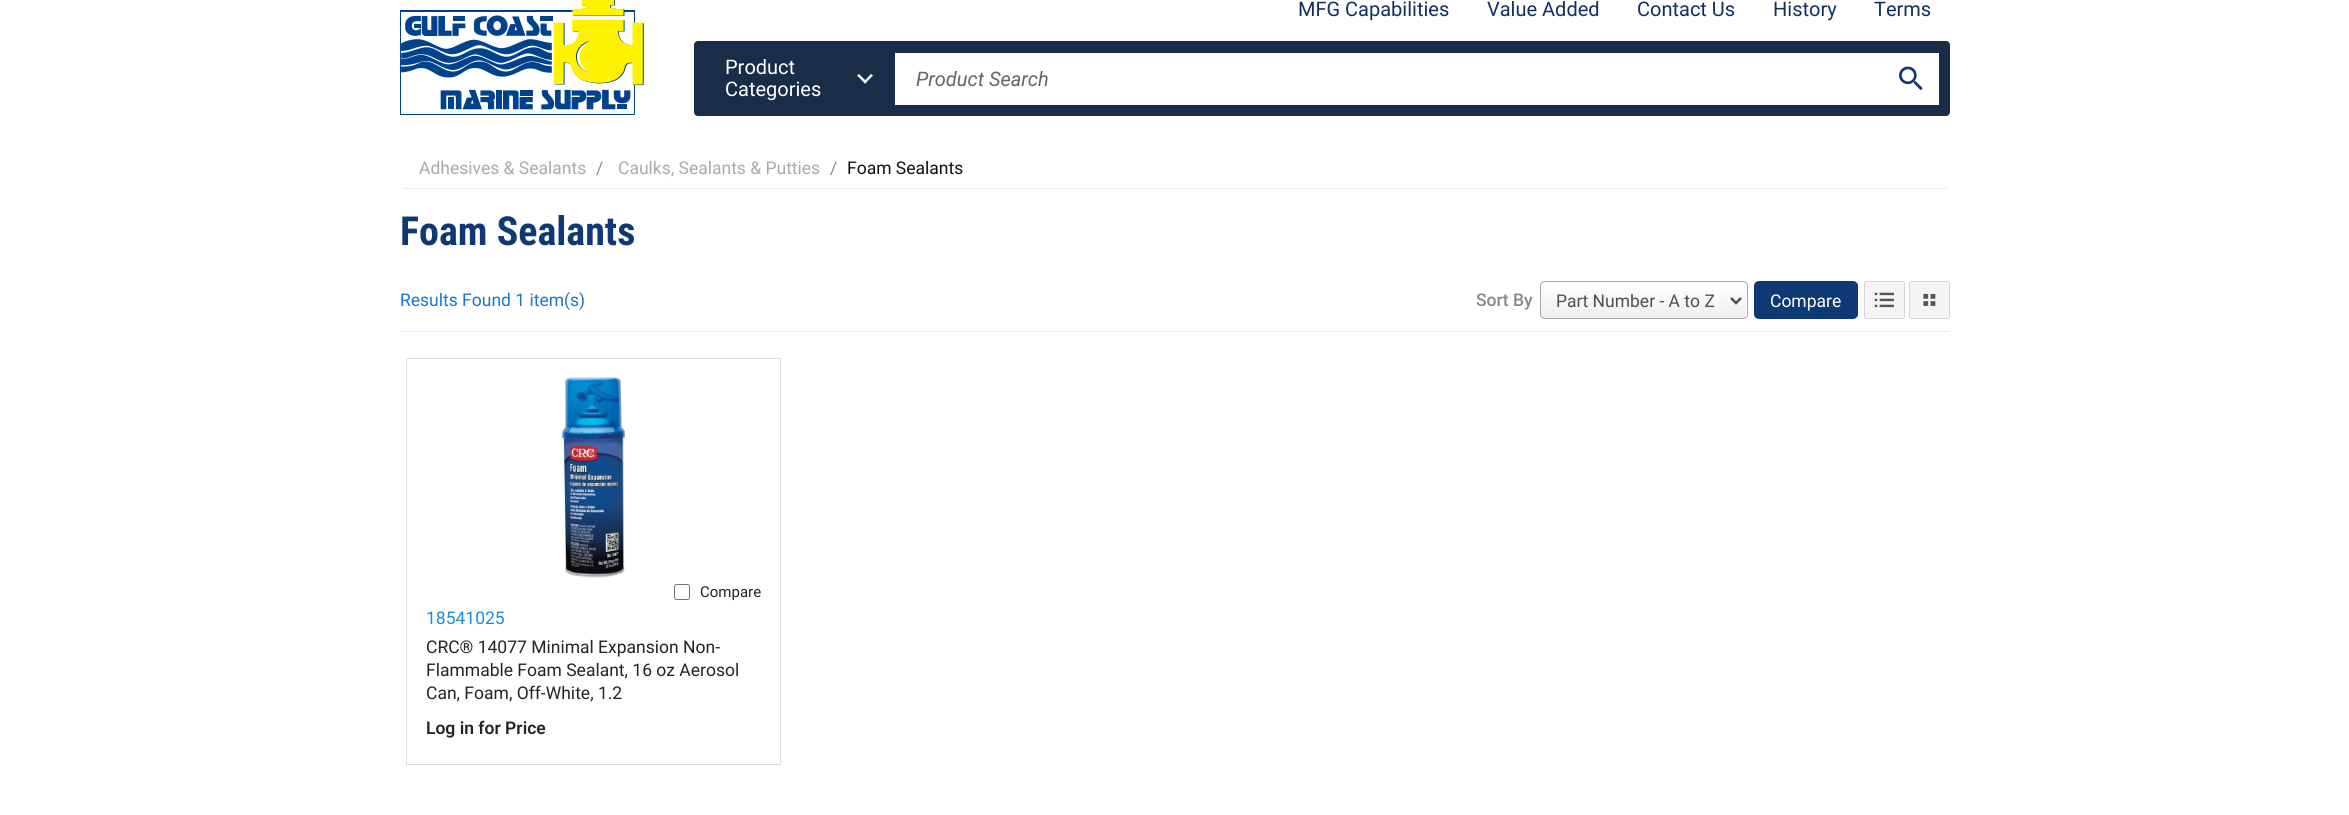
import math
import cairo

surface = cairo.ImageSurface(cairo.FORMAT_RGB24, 2349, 815)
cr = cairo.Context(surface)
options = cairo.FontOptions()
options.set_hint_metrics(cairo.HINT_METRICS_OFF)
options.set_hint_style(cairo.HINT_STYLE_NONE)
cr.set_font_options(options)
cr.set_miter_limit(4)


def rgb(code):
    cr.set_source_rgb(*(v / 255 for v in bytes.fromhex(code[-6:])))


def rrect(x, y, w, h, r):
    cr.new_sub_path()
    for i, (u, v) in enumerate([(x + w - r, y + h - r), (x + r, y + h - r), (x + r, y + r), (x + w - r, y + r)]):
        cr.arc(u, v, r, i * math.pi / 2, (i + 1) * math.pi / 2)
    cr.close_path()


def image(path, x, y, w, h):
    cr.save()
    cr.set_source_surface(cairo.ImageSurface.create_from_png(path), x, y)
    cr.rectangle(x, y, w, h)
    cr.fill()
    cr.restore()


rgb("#ffffff")
cr.paint()
image("img/1.png", 400, 0, 244, 115)
rgb("#192c48")
rrect(694, 41, 1256, 75, 4)
cr.fill()
rgb("#ffffff")
cr.new_path()
cr.move_to(859, 74)
cr.line_to(867, 82)
cr.line_to(865, 83.5)
cr.line_to(857, 75.5)
cr.close_path()
cr.fill()
cr.new_path()
cr.move_to(863.5, 82)
cr.line_to(871, 74)
cr.line_to(873, 75.5)
cr.line_to(865, 83.5)
cr.close_path()
cr.fill()
cr.rectangle(895, 53, 1044, 52)
cr.fill()
image("img/2.png", 1899, 66, 24, 25)
rgb("#ededed")
cr.rectangle(403, 188, 1545, 1)
cr.fill()
cr.rectangle(400, 331, 1550, 1)
cr.fill()
gradient = cairo.LinearGradient(1644, 283, 1644, 318)
gradient.add_color_stop_rgba(0, 1, 1, 1, 1)
gradient.add_color_stop_rgba(1, 0.937, 0.937, 0.937, 1)
cr.set_source(gradient)
rrect(1541, 283, 205, 35, 4)
cr.fill()
rrect(1540.5, 281.5, 207, 37, 4.5)
rgb("#aaaaaa")
cr.set_line_width(1)
cr.stroke()
cr.new_path()
cr.move_to(1731, 298)
cr.line_to(1736, 303)
cr.line_to(1741, 298)
rgb("#495057")
cr.set_line_width(2.5)
cr.stroke()
rgb("#0f3974")
rrect(1754, 281, 104, 38, 5)
cr.fill()
rgb("#f5f5f5")
rrect(1864.5, 281.5, 40, 37, 2)
cr.fill_preserve()
rgb("#d6d6d6")
cr.set_line_width(1)
cr.stroke()
image("img/3.png", 1874, 292, 20, 16)
rgb("#f5f5f5")
rrect(1909.5, 281.5, 40, 37, 2)
cr.fill_preserve()
rgb("#d6d6d6")
cr.stroke()
image("img/4.png", 1923, 293, 13, 13)
cr.rectangle(406.5, 358.5, 374, 406)
rgb("#dddddd")
cr.stroke()
image("img/5.png", 561, 377, 67, 201)
rrect(674.5, 584.5, 15, 15, 2)
rgb("#767676")
cr.stroke()
cr.select_font_face("Roboto")
cr.set_font_size(20)
rgb("#103160")
for x, y, s in [
    (1298, 16, "MFG Capabilities"),
    (1487, 16, "Value Added"),
    (1637, 16, "Contact Us"),
    (1773, 16, "History"),
    (1874, 16, "Terms"),
]:
    cr.move_to(x, y)
    cr.show_text(s)
rgb("#ffffff")
cr.move_to(725, 74)
cr.show_text("Product")
cr.move_to(725, 96)
cr.show_text("Categories")
cr.select_font_face("Roboto", cairo.FONT_SLANT_ITALIC)
rgb("#666666")
cr.move_to(916, 86)
cr.show_text("Product Search")
cr.select_font_face("Roboto")
cr.set_font_size(17.5)
rgb("#aaaaaa")
cr.move_to(419, 174)
cr.show_text("Adhesives & Sealants")
rgb("#868e96")
cr.move_to(596, 174)
cr.show_text("/")
rgb("#aaaaaa")
cr.move_to(618, 174)
cr.show_text("Caulks, Sealants & Putties")
rgb("#868e96")
cr.move_to(830, 174)
cr.show_text("/")
rgb("#111111")
cr.move_to(847, 174)
cr.show_text("Foam Sealants")
cr.select_font_face("Roboto Condensed", cairo.FONT_SLANT_NORMAL, cairo.FONT_WEIGHT_BOLD)
cr.set_font_size(40)
rgb("#0f3974")
cr.move_to(400, 245)
cr.show_text("Foam Sealants")
cr.select_font_face("Roboto")
cr.set_font_size(17.5)
rgb("#1976d2")
cr.move_to(400, 306)
cr.show_text("Results Found 1 item(s)")
cr.select_font_face("Roboto Medium")
rgb("#888888")
cr.move_to(1476, 306)
cr.show_text("Sort By")
cr.select_font_face("Roboto")
rgb("#495057")
cr.move_to(1556, 307)
cr.show_text("Part Number - A to Z")
rgb("#ffffff")
cr.move_to(1770, 307)
cr.show_text("Compare")
cr.set_font_size(15)
rgb("#212529")
cr.move_to(700, 597)
cr.show_text("Compare")
cr.set_font_size(17.5)
rgb("#1e88e5")
cr.move_to(426, 624)
cr.show_text("18541025")
rgb("#212529")
for x, y, s in [
    (426, 653, "CRC® 14077 Minimal Expansion Non-"),
    (426, 676, "Flammable Foam Sealant, 16 oz Aerosol"),
    (426, 699, "Can, Foam, Off-White, 1.2"),
]:
    cr.move_to(x, y)
    cr.show_text(s)
cr.select_font_face("Roboto SemiBold")
cr.move_to(426, 734)
cr.show_text("Log in for Price")
surface.write_to_png("page.png")
